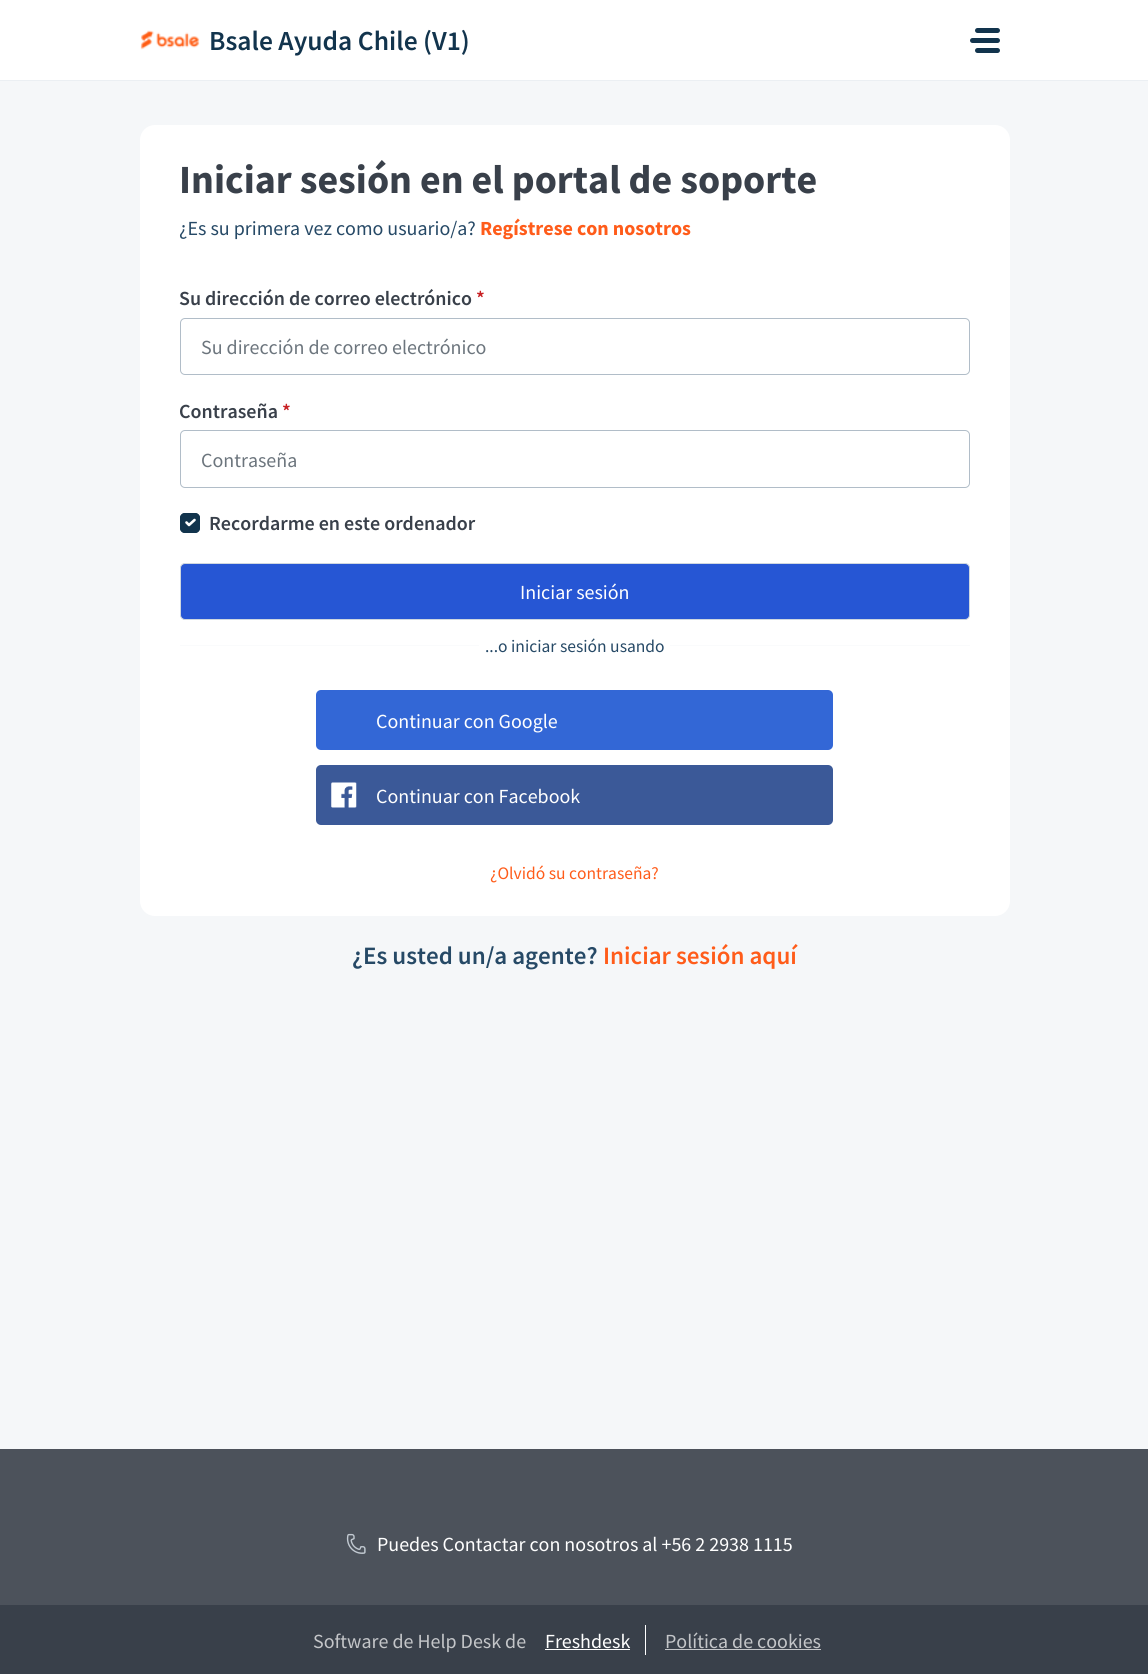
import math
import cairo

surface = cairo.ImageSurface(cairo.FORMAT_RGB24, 1148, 1674)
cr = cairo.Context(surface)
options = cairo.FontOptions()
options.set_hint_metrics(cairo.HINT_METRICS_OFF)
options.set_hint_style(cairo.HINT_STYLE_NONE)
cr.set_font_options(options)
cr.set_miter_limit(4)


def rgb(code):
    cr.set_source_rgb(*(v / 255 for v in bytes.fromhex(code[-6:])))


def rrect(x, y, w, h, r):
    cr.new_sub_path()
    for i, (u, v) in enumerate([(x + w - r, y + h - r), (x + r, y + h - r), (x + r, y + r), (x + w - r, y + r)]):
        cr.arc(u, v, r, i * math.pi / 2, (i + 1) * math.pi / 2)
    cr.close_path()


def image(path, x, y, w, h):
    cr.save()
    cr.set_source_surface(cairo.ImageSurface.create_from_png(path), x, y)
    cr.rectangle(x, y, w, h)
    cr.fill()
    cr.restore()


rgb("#f5f7f9")
cr.paint()
rgb("#ffffff")
cr.rectangle(0, 0, 1148, 80)
cr.fill()
rgb("#ebeff3")
cr.rectangle(0, 80, 1148, 1)
cr.fill()
image("img/1.png", 140, 30, 60, 20)
rgb("#12344d")
rrect(975, 28, 25, 5, 2.5)
cr.fill()
rrect(970, 38, 30, 5, 2.5)
cr.fill()
rrect(975, 48, 25, 5, 2.5)
cr.fill()
rgb("#ffffff")
rrect(140, 125, 870, 791, 15)
cr.fill()
rrect(180.5, 318.5, 789, 56, 4.5)
rgb("#b1bdc8")
cr.set_line_width(1)
cr.stroke()
rrect(180.5, 430.5, 789, 57, 4.5)
cr.stroke()
rgb("#12344d")
rrect(180, 513, 20, 20, 5)
cr.fill()
cr.new_path()
cr.move_to(186.5, 522.5)
cr.line_to(189, 525)
cr.line_to(194.5, 520)
rgb("#ffffff")
cr.set_line_width(2.6)
cr.set_line_cap(cairo.LINE_CAP_ROUND)
cr.set_line_join(cairo.LINE_JOIN_ROUND)
cr.stroke()
rrect(180.5, 513.5, 19, 19, 4.5)
rgb("#12344d")
cr.set_line_width(1)
cr.set_line_cap(cairo.LINE_CAP_BUTT)
cr.set_line_join(cairo.LINE_JOIN_MITER)
cr.stroke()
rgb("#2656d4")
rrect(180.5, 563.5, 789, 56, 4.5)
cr.fill_preserve()
rgb("#cfd7df")
cr.stroke()
rgb("#fafbfc")
cr.rectangle(180, 645, 790, 1)
cr.fill()
rgb("#ffffff")
cr.rectangle(479, 645, 191, 1)
cr.fill()
rgb("#3367d6")
rrect(316, 690, 517, 60, 5)
cr.fill()
rgb("#3b5998")
rrect(316, 765, 517, 60, 5)
cr.fill()
image("img/2.png", 331, 782, 26, 26)
rgb("#4c525b")
cr.rectangle(0, 1449, 1148, 156)
cr.fill()
image("img/3.png", 346, 1533, 20, 21)
for x, y, w, h, color in [
    (0, 1605, 1148, 69, "#39404a"),
    (645, 1625, 1, 30, "#ffffff"),
    (545, 1649, 85, 1, "#ffffff"),
    (665, 1649, 156, 1, "#c4c6c9"),
]:
    rgb(color)
    cr.rectangle(x, y, w, h)
    cr.fill()
cr.select_font_face("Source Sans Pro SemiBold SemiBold")
cr.set_font_size(27.5)
rgb("#12344d")
cr.move_to(209, 50)
cr.show_text("Bsale Ayuda Chile (V1)")
cr.select_font_face("Source Sans Pro", cairo.FONT_SLANT_NORMAL, cairo.FONT_WEIGHT_BOLD)
cr.set_font_size(40)
rgb("#39404a")
cr.move_to(179, 193)
cr.show_text("Iniciar sesión en el portal de soporte")
cr.select_font_face("Source Sans Pro")
cr.set_font_size(20)
rgb("#264966")
cr.move_to(179, 235)
cr.show_text("¿Es su primera vez como usuario/a?")
cr.select_font_face("Source Sans Pro", cairo.FONT_SLANT_NORMAL, cairo.FONT_WEIGHT_BOLD)
rgb("#ff5c1a")
cr.move_to(480, 235)
cr.show_text("Regístrese con nosotros")
cr.select_font_face("Source Sans Pro SemiBold SemiBold")
rgb("#39404a")
cr.move_to(179, 305)
cr.show_text("Su dirección de correo electrónico")
rgb("#c82124")
cr.move_to(476, 305)
cr.show_text("*")
cr.select_font_face("Source Sans Pro")
rgb("#6c757d")
cr.move_to(201, 354)
cr.show_text("Su dirección de correo electrónico")
cr.select_font_face("Source Sans Pro SemiBold SemiBold")
rgb("#39404a")
cr.move_to(179, 418)
cr.show_text("Contraseña")
rgb("#c82124")
cr.move_to(282, 418)
cr.show_text("*")
cr.select_font_face("Source Sans Pro")
rgb("#6c757d")
cr.move_to(201, 467)
cr.show_text("Contraseña")
cr.select_font_face("Source Sans Pro SemiBold SemiBold")
rgb("#39404a")
cr.move_to(209, 530)
cr.show_text("Recordarme en este ordenador")
cr.select_font_face("Source Sans Pro")
rgb("#ffffff")
cr.move_to(520, 599)
cr.show_text("Iniciar sesión")
cr.set_font_size(17.5)
rgb("#264966")
cr.move_to(485, 652)
cr.show_text("...o iniciar sesión usando")
cr.set_font_size(20)
rgb("#ffffff")
cr.move_to(376, 728)
cr.show_text("Continuar con Google")
cr.move_to(376, 803)
cr.show_text("Continuar con Facebook")
cr.set_font_size(17.5)
rgb("#ff5c1a")
cr.move_to(490, 879)
cr.show_text("¿Olvidó su contraseña?")
cr.select_font_face("Source Sans Pro SemiBold SemiBold")
cr.set_font_size(25)
rgb("#264966")
cr.move_to(352, 964)
cr.show_text("¿Es usted un/a agente?")
rgb("#ff5c1a")
cr.move_to(603, 964)
cr.show_text("Iniciar sesión aquí")
cr.select_font_face("Source Sans Pro")
cr.set_font_size(20)
rgb("#ffffff")
cr.move_to(377, 1551)
cr.show_text("Puedes Contactar con nosotros al +56 2 2938 1115")
rgb("#c4c6c9")
cr.move_to(313, 1648)
cr.show_text("Software de Help Desk de")
rgb("#ffffff")
cr.move_to(545, 1648)
cr.show_text("Freshdesk")
rgb("#c4c6c9")
cr.move_to(665, 1648)
cr.show_text("Política de cookies")
surface.write_to_png("page.png")
